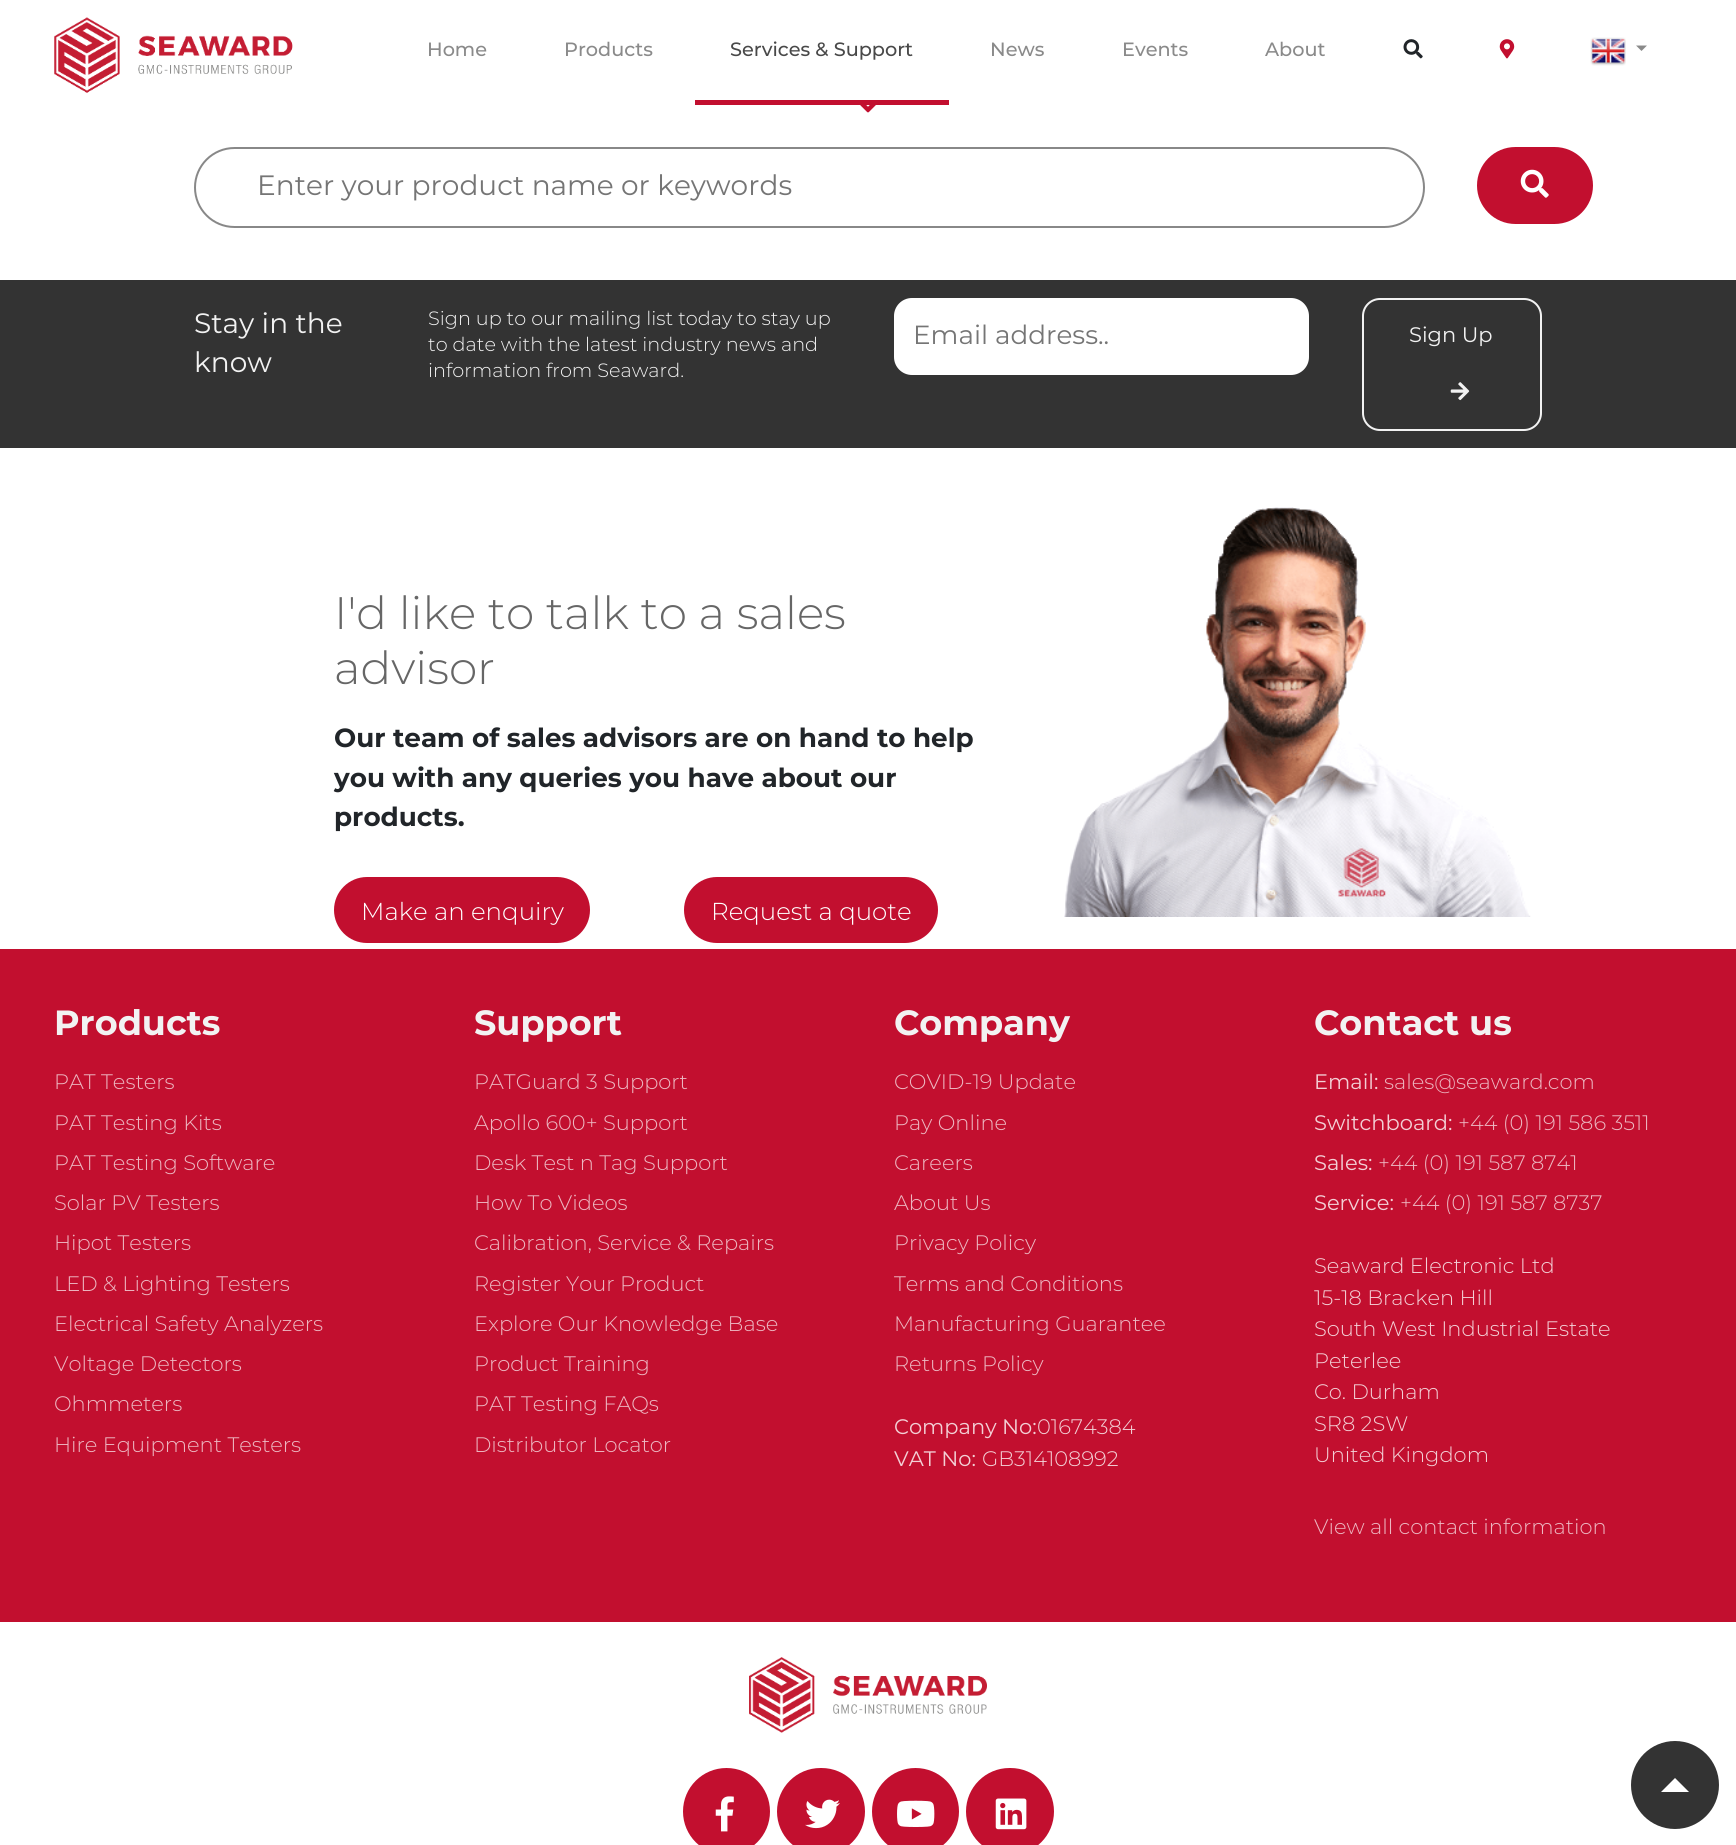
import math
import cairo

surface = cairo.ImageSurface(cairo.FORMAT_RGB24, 1736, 1845)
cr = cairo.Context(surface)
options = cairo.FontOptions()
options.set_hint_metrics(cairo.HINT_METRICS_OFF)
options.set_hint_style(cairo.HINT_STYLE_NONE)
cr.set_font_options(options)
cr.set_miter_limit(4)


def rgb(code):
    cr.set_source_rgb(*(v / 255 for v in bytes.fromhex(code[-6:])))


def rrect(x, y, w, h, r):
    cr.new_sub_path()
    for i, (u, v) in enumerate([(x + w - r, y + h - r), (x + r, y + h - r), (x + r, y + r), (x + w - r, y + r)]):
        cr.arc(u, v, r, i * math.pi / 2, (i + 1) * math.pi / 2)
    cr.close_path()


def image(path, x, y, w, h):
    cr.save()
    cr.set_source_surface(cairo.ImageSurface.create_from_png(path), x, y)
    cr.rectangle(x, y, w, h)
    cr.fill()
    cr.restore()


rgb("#ffffff")
cr.paint()
image("img/1.png", 54, 17, 239, 76)
rgb("#c20f2f")
cr.rectangle(695, 100, 254, 5)
cr.fill()
image("img/2.png", 1403, 39, 20, 20)
image("img/3.png", 1499, 39, 16, 20)
image("img/4.png", 1590, 37, 36, 29)
rgb("#8a8a8a")
cr.new_path()
cr.move_to(1636, 45.5)
cr.line_to(1647, 45.5)
cr.line_to(1641.5, 51)
cr.close_path()
cr.fill()
image("img/5.png", 860, 105, 16, 8)
rrect(195, 148, 1229, 79, 39.5)
rgb("#888888")
cr.stroke()
rgb("#c20f2f")
rrect(1477, 147, 116, 77, 38.5)
cr.fill()
image("img/6.png", 1520, 169, 29, 29)
rgb("#333333")
cr.rectangle(0, 280, 1736, 168)
cr.fill()
rgb("#ffffff")
rrect(894, 298, 415, 77, 18)
cr.fill()
rrect(1363, 299, 178, 131, 17)
rgb("#f2f2f2")
cr.stroke()
image("img/7.png", 1450, 382, 20, 19)
rgb("#c20f2f")
rrect(334, 877, 256, 66, 33)
cr.fill()
rrect(684, 877, 254, 66, 33)
cr.fill()
image("img/8.png", 1064, 507, 467, 410)
cr.rectangle(0, 949, 1736, 673)
cr.fill()
image("img/9.png", 749, 1657, 238, 76)
cr.arc(726.5, 1811.5, 43.5, 0, 2 * math.pi)
cr.fill()
image("img/10.png", 715, 1796, 19, 36)
rrect(777, 1768, 88, 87, 43.5)
cr.fill()
image("img/11.png", 805, 1799, 35, 30)
cr.arc(915.5, 1811.5, 43.5, 0, 2 * math.pi)
cr.fill()
image("img/12.png", 897, 1800, 38, 27)
rrect(966, 1768, 88, 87, 43.5)
cr.fill()
image("img/13.png", 995, 1798, 32, 32)
rgb("#333333")
cr.arc(1675, 1785, 44, 0, 2 * math.pi)
cr.fill()
rgb("#ffffff")
cr.new_path()
cr.move_to(1689, 1792)
cr.line_to(1661, 1792)
cr.line_to(1675, 1778)
cr.close_path()
cr.fill()
cr.select_font_face("Montserrat Medium")
cr.set_font_size(19.25)
rgb("#8a8a8a")
cr.move_to(427, 56)
cr.show_text("Home")
cr.move_to(564, 56)
cr.show_text("Products")
rgb("#494949")
cr.move_to(730, 56)
cr.show_text("Services & Support")
rgb("#8a8a8a")
for x, y, s in [
    (990, 56, "News"),
    (1122, 56, "Events"),
    (1265, 56, "About"),
]:
    cr.move_to(x, y)
    cr.show_text(s)
cr.select_font_face("Montserrat")
cr.set_font_size(28)
rgb("#757575")
cr.move_to(257, 195)
cr.show_text("Enter your product name or keywords")
rgb("#f2f2f2")
cr.move_to(194, 333)
cr.show_text("Stay in the")
cr.move_to(194, 372)
cr.show_text("know")
cr.select_font_face("Montserrat Light")
cr.set_font_size(19.25)
for x, y, s in [
    (428, 325, "Sign up to our mailing list today to stay up"),
    (428, 351, "to date with the latest industry news and"),
    (428, 377, "information from Seaward."),
]:
    cr.move_to(x, y)
    cr.show_text(s)
cr.select_font_face("Montserrat")
cr.set_font_size(26.25)
rgb("#757575")
cr.move_to(913, 344)
cr.show_text("Email address..")
cr.set_font_size(21)
rgb("#f2f2f2")
cr.move_to(1409, 342)
cr.show_text("Sign Up")
cr.select_font_face("Montserrat Light")
cr.set_font_size(45.5)
rgb("#666666")
cr.move_to(334, 629)
cr.show_text("I'd like to talk to a sales")
cr.move_to(334, 684)
cr.show_text("advisor")
cr.select_font_face("Montserrat", cairo.FONT_SLANT_NORMAL, cairo.FONT_WEIGHT_BOLD)
cr.set_font_size(26.25)
rgb("#212529")
for x, y, s in [
    (334, 747, "Our team of sales advisors are on hand to help"),
    (334, 787, "you with any queries you have about our"),
    (334, 826, "products."),
]:
    cr.move_to(x, y)
    cr.show_text(s)
cr.select_font_face("Montserrat Light")
cr.set_font_size(24.5)
rgb("#ffffff")
cr.move_to(361, 920)
cr.show_text("Make an enquiry")
cr.move_to(711, 920)
cr.show_text("Request a quote")
cr.select_font_face("Montserrat", cairo.FONT_SLANT_NORMAL, cairo.FONT_WEIGHT_BOLD)
cr.set_font_size(35)
rgb("#f2f2f2")
cr.move_to(54, 1035)
cr.show_text("Products")
cr.select_font_face("Montserrat Light")
cr.set_font_size(21)
rgb("#edb7c1")
for x, y, s in [
    (54, 1089, "PAT Testers"),
    (54, 1130, "PAT Testing Kits"),
    (54, 1170, "PAT Testing Software"),
    (54, 1210, "Solar PV Testers"),
    (54, 1250, "Hipot Testers"),
    (54, 1291, "LED & Lighting Testers"),
    (54, 1331, "Electrical Safety Analyzers"),
    (54, 1371, "Voltage Detectors"),
    (54, 1411, "Ohmmeters"),
    (54, 1452, "Hire Equipment Testers"),
]:
    cr.move_to(x, y)
    cr.show_text(s)
cr.select_font_face("Montserrat", cairo.FONT_SLANT_NORMAL, cairo.FONT_WEIGHT_BOLD)
cr.set_font_size(35)
rgb("#f2f2f2")
cr.move_to(474, 1035)
cr.show_text("Support")
cr.select_font_face("Montserrat Light")
cr.set_font_size(21)
rgb("#edb7c1")
for x, y, s in [
    (474, 1089, "PATGuard 3 Support"),
    (474, 1130, "Apollo 600+ Support"),
    (474, 1170, "Desk Test n Tag Support"),
    (474, 1210, "How To Videos"),
    (474, 1250, "Calibration, Service & Repairs"),
    (474, 1291, "Register Your Product"),
    (474, 1331, "Explore Our Knowledge Base"),
    (474, 1371, "Product Training"),
    (474, 1411, "PAT Testing FAQs"),
    (474, 1452, "Distributor Locator"),
]:
    cr.move_to(x, y)
    cr.show_text(s)
cr.select_font_face("Montserrat", cairo.FONT_SLANT_NORMAL, cairo.FONT_WEIGHT_BOLD)
cr.set_font_size(35)
rgb("#f2f2f2")
cr.move_to(894, 1035)
cr.show_text("Company")
cr.select_font_face("Montserrat Light")
cr.set_font_size(21)
rgb("#edb7c1")
for x, y, s in [
    (894, 1089, "COVID-19 Update"),
    (894, 1130, "Pay Online"),
    (894, 1170, "Careers"),
    (894, 1210, "About Us"),
    (894, 1250, "Privacy Policy"),
    (894, 1291, "Terms and Conditions"),
    (894, 1331, "Manufacturing Guarantee"),
    (894, 1371, "Returns Policy"),
]:
    cr.move_to(x, y)
    cr.show_text(s)
cr.select_font_face("Montserrat")
rgb("#f3cfd5")
cr.move_to(894, 1434)
cr.show_text("Company No:")
cr.select_font_face("Montserrat Light")
cr.move_to(1037, 1434)
cr.show_text("01674384")
cr.select_font_face("Montserrat")
cr.move_to(894, 1466)
cr.show_text("VAT No:")
cr.select_font_face("Montserrat Light")
cr.move_to(982, 1466)
cr.show_text("GB314108992")
cr.select_font_face("Montserrat", cairo.FONT_SLANT_NORMAL, cairo.FONT_WEIGHT_BOLD)
cr.set_font_size(35)
rgb("#f2f2f2")
cr.move_to(1314, 1035)
cr.show_text("Contact us")
cr.select_font_face("Montserrat")
cr.set_font_size(21)
rgb("#f3cfd5")
cr.move_to(1314, 1089)
cr.show_text("Email:")
cr.select_font_face("Montserrat Light")
rgb("#edb7c1")
cr.move_to(1384, 1089)
cr.show_text("sales@seaward.com")
cr.select_font_face("Montserrat")
rgb("#f3cfd5")
cr.move_to(1314, 1130)
cr.show_text("Switchboard:")
cr.select_font_face("Montserrat Light")
rgb("#edb7c1")
cr.move_to(1458, 1130)
cr.show_text("+44 (0) 191 586 3511")
cr.select_font_face("Montserrat")
rgb("#f3cfd5")
cr.move_to(1314, 1170)
cr.show_text("Sales:")
cr.select_font_face("Montserrat Light")
rgb("#edb7c1")
cr.move_to(1378, 1170)
cr.show_text("+44 (0) 191 587 8741")
cr.select_font_face("Montserrat")
rgb("#f3cfd5")
cr.move_to(1314, 1210)
cr.show_text("Service:")
cr.select_font_face("Montserrat Light")
rgb("#edb7c1")
cr.move_to(1400, 1210)
cr.show_text("+44 (0) 191 587 8737")
rgb("#f3cfd5")
for x, y, s in [
    (1314, 1273, "Seaward Electronic Ltd"),
    (1314, 1305, "15-18 Bracken Hill"),
    (1314, 1336, "South West Industrial Estate"),
    (1314, 1368, "Peterlee"),
    (1314, 1399, "Co. Durham"),
    (1314, 1431, "SR8 2SW"),
    (1314, 1462, "United Kingdom"),
]:
    cr.move_to(x, y)
    cr.show_text(s)
rgb("#edb7c1")
cr.move_to(1314, 1534)
cr.show_text("View all contact information")
surface.write_to_png("page.png")
